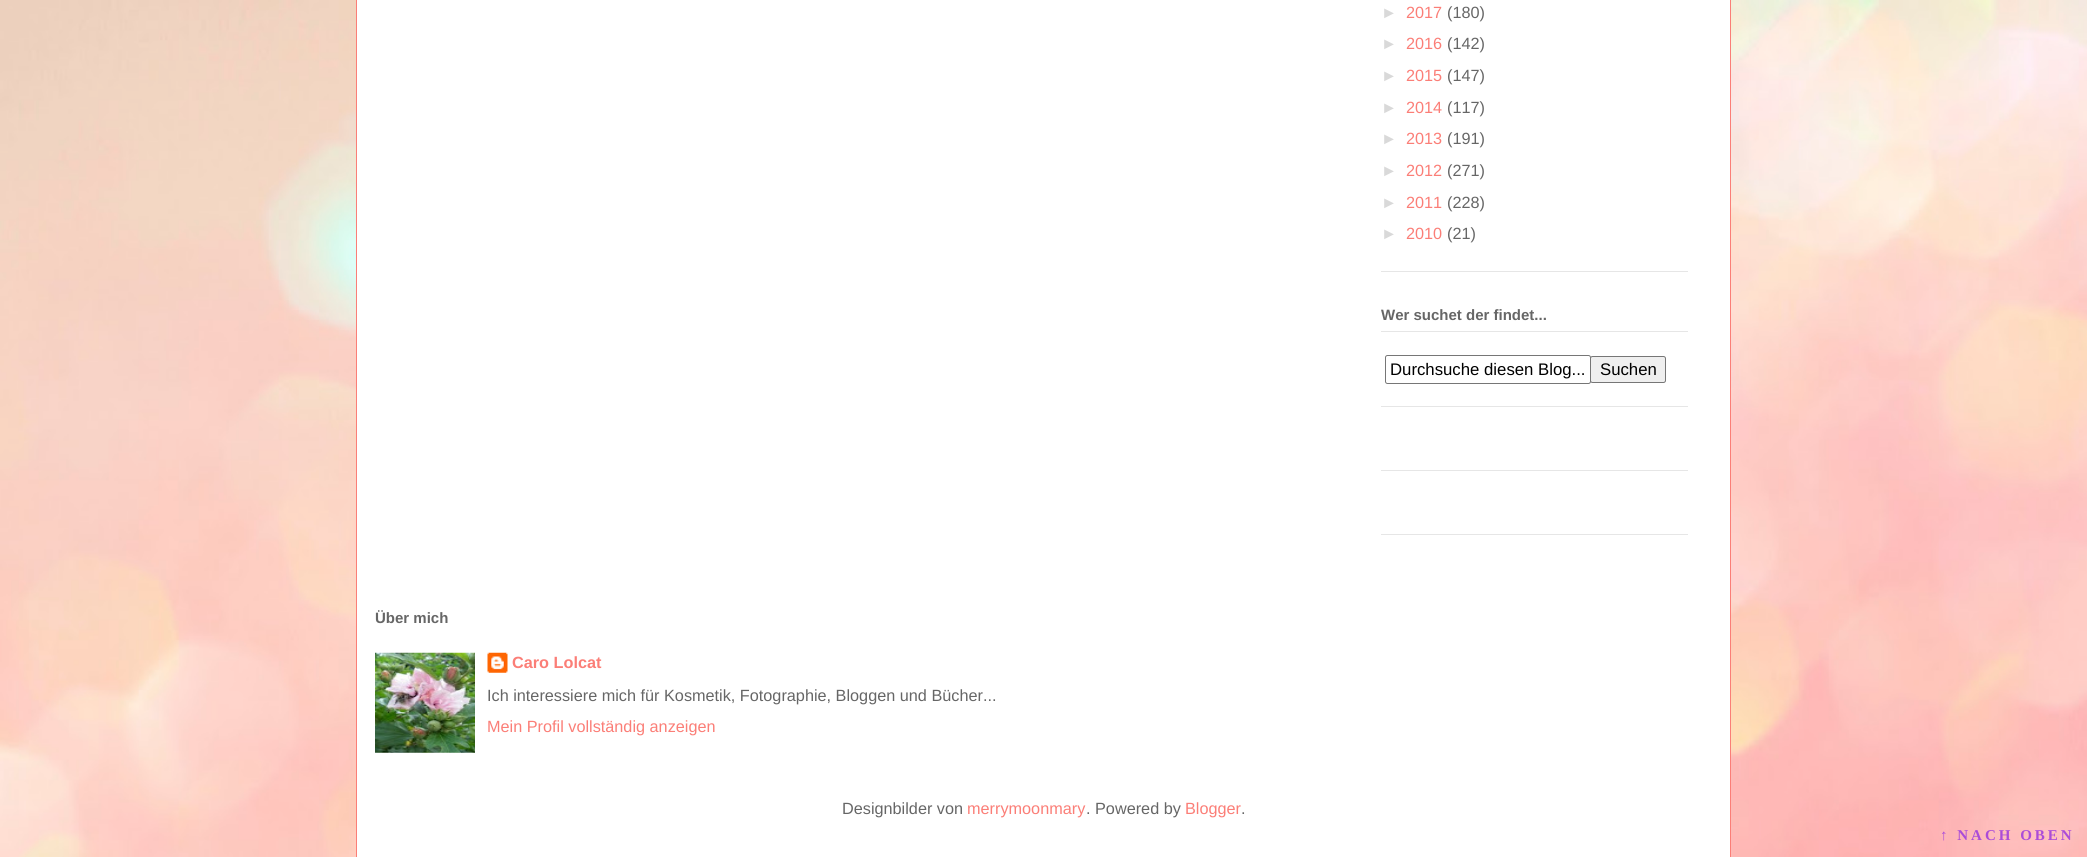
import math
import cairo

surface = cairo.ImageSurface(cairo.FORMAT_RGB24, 2087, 857)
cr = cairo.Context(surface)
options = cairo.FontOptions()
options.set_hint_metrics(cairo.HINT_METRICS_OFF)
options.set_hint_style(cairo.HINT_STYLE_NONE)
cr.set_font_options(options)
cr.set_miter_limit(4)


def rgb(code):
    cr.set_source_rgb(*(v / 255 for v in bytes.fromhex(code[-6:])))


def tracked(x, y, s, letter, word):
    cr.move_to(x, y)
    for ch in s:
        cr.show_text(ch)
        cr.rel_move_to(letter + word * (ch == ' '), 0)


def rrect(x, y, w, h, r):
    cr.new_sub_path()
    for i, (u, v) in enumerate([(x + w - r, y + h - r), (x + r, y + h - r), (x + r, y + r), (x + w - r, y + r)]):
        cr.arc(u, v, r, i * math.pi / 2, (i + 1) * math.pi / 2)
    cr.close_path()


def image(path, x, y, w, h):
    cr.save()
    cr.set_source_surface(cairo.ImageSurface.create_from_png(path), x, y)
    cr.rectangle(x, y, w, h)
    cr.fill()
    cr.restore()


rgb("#ffffff")
cr.paint()
image("img/1.png", 0, 0, 2087, 857)
for x, y, w, h, color in [
    (357, 0, 1373, 857, "#ffffff"),
    (1730, 0, 1, 857, "#fb7e77"),
    (356, 0, 1, 857, "#fb7e77"),
]:
    rgb(color)
    cr.rectangle(x, y, w, h)
    cr.fill()
image("img/2.png", 375, 652, 100, 101)
image("img/3.png", 487, 652, 21, 21)
for x, y, w, h, color in [
    (1381, 271, 307, 1, "#e6e6e6"),
    (1381, 406, 307, 1, "#e6e6e6"),
    (1381, 331, 307, 1, "#e6e6e6"),
]:
    rgb(color)
    cr.rectangle(x, y, w, h)
    cr.fill()
rrect(1385.5, 355.5, 205, 28, 2)
rgb("#767676")
cr.set_line_width(1)
cr.stroke()
rgb("#efefef")
rrect(1590.5, 356.5, 75, 26, 2)
cr.fill_preserve()
rgb("#767676")
cr.stroke()
rgb("#e6e6e6")
cr.rectangle(1381, 470, 307, 1)
cr.fill()
cr.rectangle(1381, 534, 307, 1)
cr.fill()
cr.select_font_face("Liberation Sans", cairo.FONT_SLANT_NORMAL, cairo.FONT_WEIGHT_BOLD)
cr.set_font_size(15)
rgb("#666666")
cr.move_to(375, 623)
cr.show_text("Über mich")
cr.set_font_size(16.25)
rgb("#fb7e77")
cr.move_to(512, 668)
cr.show_text("Caro Lolcat")
cr.select_font_face("Liberation Sans")
rgb("#666666")
cr.move_to(487, 701)
cr.show_text("Ich interessiere mich für Kosmetik, Fotographie, Bloggen und Bücher...")
rgb("#fb7e77")
cr.move_to(487, 732)
cr.show_text("Mein Profil vollständig anzeigen")
rgb("#666666")
cr.move_to(842, 814)
cr.show_text("Designbilder von")
rgb("#fb7e77")
cr.move_to(967, 814)
cr.show_text("merrymoonmary")
rgb("#666666")
cr.move_to(1086, 814)
cr.show_text(". Powered by")
rgb("#fb7e77")
cr.move_to(1185, 814)
cr.show_text("Blogger")
rgb("#666666")
cr.move_to(1241, 814)
cr.show_text(".")
rgb("#d9d9d9")
cr.move_to(1381, 18)
cr.show_text("►")
rgb("#fb7e77")
cr.move_to(1406, 18)
cr.show_text("2017")
rgb("#666666")
cr.move_to(1447, 18)
cr.show_text("(180)")
rgb("#d9d9d9")
cr.move_to(1381, 49)
cr.show_text("►")
rgb("#fb7e77")
cr.move_to(1406, 49)
cr.show_text("2016")
rgb("#666666")
cr.move_to(1447, 49)
cr.show_text("(142)")
rgb("#d9d9d9")
cr.move_to(1381, 81)
cr.show_text("►")
rgb("#fb7e77")
cr.move_to(1406, 81)
cr.show_text("2015")
rgb("#666666")
cr.move_to(1447, 81)
cr.show_text("(147)")
rgb("#d9d9d9")
cr.move_to(1381, 113)
cr.show_text("►")
rgb("#fb7e77")
cr.move_to(1406, 113)
cr.show_text("2014")
rgb("#666666")
cr.move_to(1447, 113)
cr.show_text("(117)")
rgb("#d9d9d9")
cr.move_to(1381, 144)
cr.show_text("►")
rgb("#fb7e77")
cr.move_to(1406, 144)
cr.show_text("2013")
rgb("#666666")
cr.move_to(1447, 144)
cr.show_text("(191)")
rgb("#d9d9d9")
cr.move_to(1381, 176)
cr.show_text("►")
rgb("#fb7e77")
cr.move_to(1406, 176)
cr.show_text("2012")
rgb("#666666")
cr.move_to(1447, 176)
cr.show_text("(271)")
rgb("#d9d9d9")
cr.move_to(1381, 208)
cr.show_text("►")
rgb("#fb7e77")
cr.move_to(1406, 208)
cr.show_text("2011")
rgb("#666666")
cr.move_to(1447, 208)
cr.show_text("(228)")
rgb("#d9d9d9")
cr.move_to(1381, 239)
cr.show_text("►")
rgb("#fb7e77")
cr.move_to(1406, 239)
cr.show_text("2010")
rgb("#666666")
cr.move_to(1447, 239)
cr.show_text("(21)")
cr.select_font_face("Liberation Sans", cairo.FONT_SLANT_NORMAL, cairo.FONT_WEIGHT_BOLD)
cr.set_font_size(15)
cr.move_to(1381, 320)
cr.show_text("Wer suchet der findet...")
cr.select_font_face("Liberation Sans")
cr.set_font_size(16.75)
rgb("#000000")
cr.move_to(1390, 375)
cr.show_text("Durchsuche diesen Blog...")
cr.move_to(1600, 375)
cr.show_text("Suchen")
cr.select_font_face("Liberation Serif", cairo.FONT_SLANT_NORMAL, cairo.FONT_WEIGHT_BOLD)
cr.set_font_size(15)
rgb("#ab4cd8")
tracked(1940, 840, "↑ NACH OBEN", 3, 0)
surface.write_to_png("page.png")
